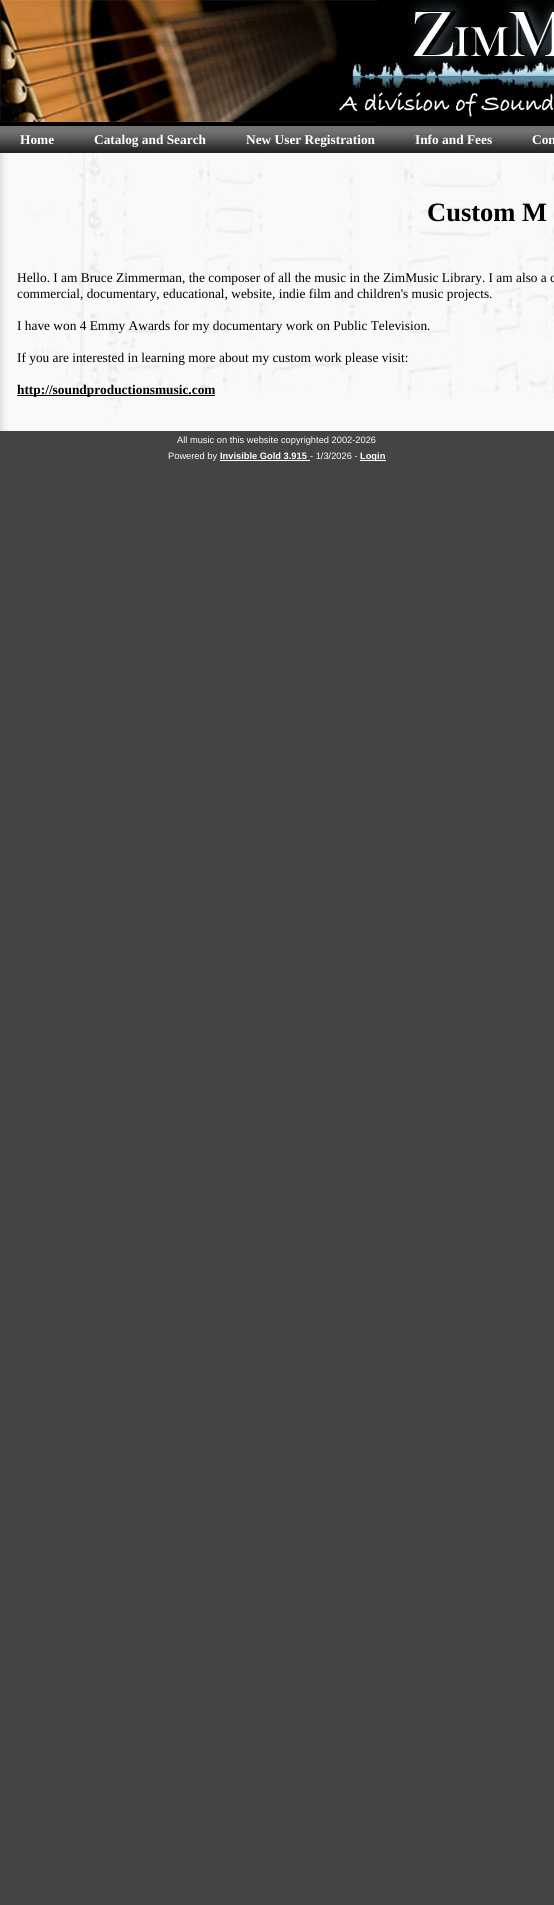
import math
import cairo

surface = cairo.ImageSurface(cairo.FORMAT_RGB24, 554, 1905)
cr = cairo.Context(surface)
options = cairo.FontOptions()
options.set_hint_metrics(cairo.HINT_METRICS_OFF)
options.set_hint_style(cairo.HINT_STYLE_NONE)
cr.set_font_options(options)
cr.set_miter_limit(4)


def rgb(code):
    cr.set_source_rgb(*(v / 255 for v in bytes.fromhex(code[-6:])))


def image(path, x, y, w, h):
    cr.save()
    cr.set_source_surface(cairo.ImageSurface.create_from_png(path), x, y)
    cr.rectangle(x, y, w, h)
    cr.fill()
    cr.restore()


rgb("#444444")
cr.paint()
image("img/1.png", 0, 153, 554, 278)
rgb("#000000")
cr.rectangle(0, 122, 554, 4)
cr.fill()
image("img/2.png", 0, 0, 554, 122)
image("img/3.png", 0, 126, 554, 27)
for x, y, w, h, color in [
    (17, 395, 198, 1, "#000000"),
    (220, 460, 90, 1, "#ffffff"),
    (360, 460, 26, 1, "#ffffff"),
]:
    rgb(color)
    cr.rectangle(x, y, w, h)
    cr.fill()
cr.select_font_face("Liberation Serif", cairo.FONT_SLANT_NORMAL, cairo.FONT_WEIGHT_BOLD)
cr.set_font_size(13.35)
for x, y, s in [
    (20, 144, "Home"),
    (94, 144, "Catalog and Search"),
    (246, 144, "New User Registration"),
    (415, 144, "Info and Fees"),
    (532, 144, "Con"),
]:
    cr.move_to(x, y)
    cr.show_text(s)
cr.set_font_size(26.5)
rgb("#000000")
cr.move_to(427, 221)
cr.show_text("Custom M")
cr.select_font_face("Liberation Serif")
cr.set_font_size(13.35)
for x, y, s in [
    (17, 282, "Hello. I am Bruce Zimmerman, the composer of all the music in the ZimMusic Library. I am also a c"),
    (17, 298, "commercial, documentary, educational, website, indie film and children's music projects."),
    (17, 330, "I have won 4 Emmy Awards for my documentary work on Public Television."),
    (17, 362, "If you are interested in learning more about my custom work please visit:"),
]:
    cr.move_to(x, y)
    cr.show_text(s)
cr.select_font_face("Liberation Serif", cairo.FONT_SLANT_NORMAL, cairo.FONT_WEIGHT_BOLD)
cr.move_to(17, 394)
cr.show_text("http://soundproductionsmusic.com")
cr.select_font_face("Liberation Sans")
cr.set_font_size(9.3)
rgb("#ffffff")
cr.move_to(177, 443)
cr.show_text("All music on this website copyrighted 2002-2026")
cr.move_to(168, 459)
cr.show_text("Powered by")
cr.select_font_face("Liberation Sans", cairo.FONT_SLANT_NORMAL, cairo.FONT_WEIGHT_BOLD)
cr.move_to(220, 459)
cr.show_text("Invisible Gold 3.915")
cr.select_font_face("Liberation Sans")
cr.move_to(310, 459)
cr.show_text("- 1/3/2026 -")
cr.select_font_face("Liberation Sans", cairo.FONT_SLANT_NORMAL, cairo.FONT_WEIGHT_BOLD)
cr.move_to(360, 459)
cr.show_text("Login")
surface.write_to_png("page.png")
